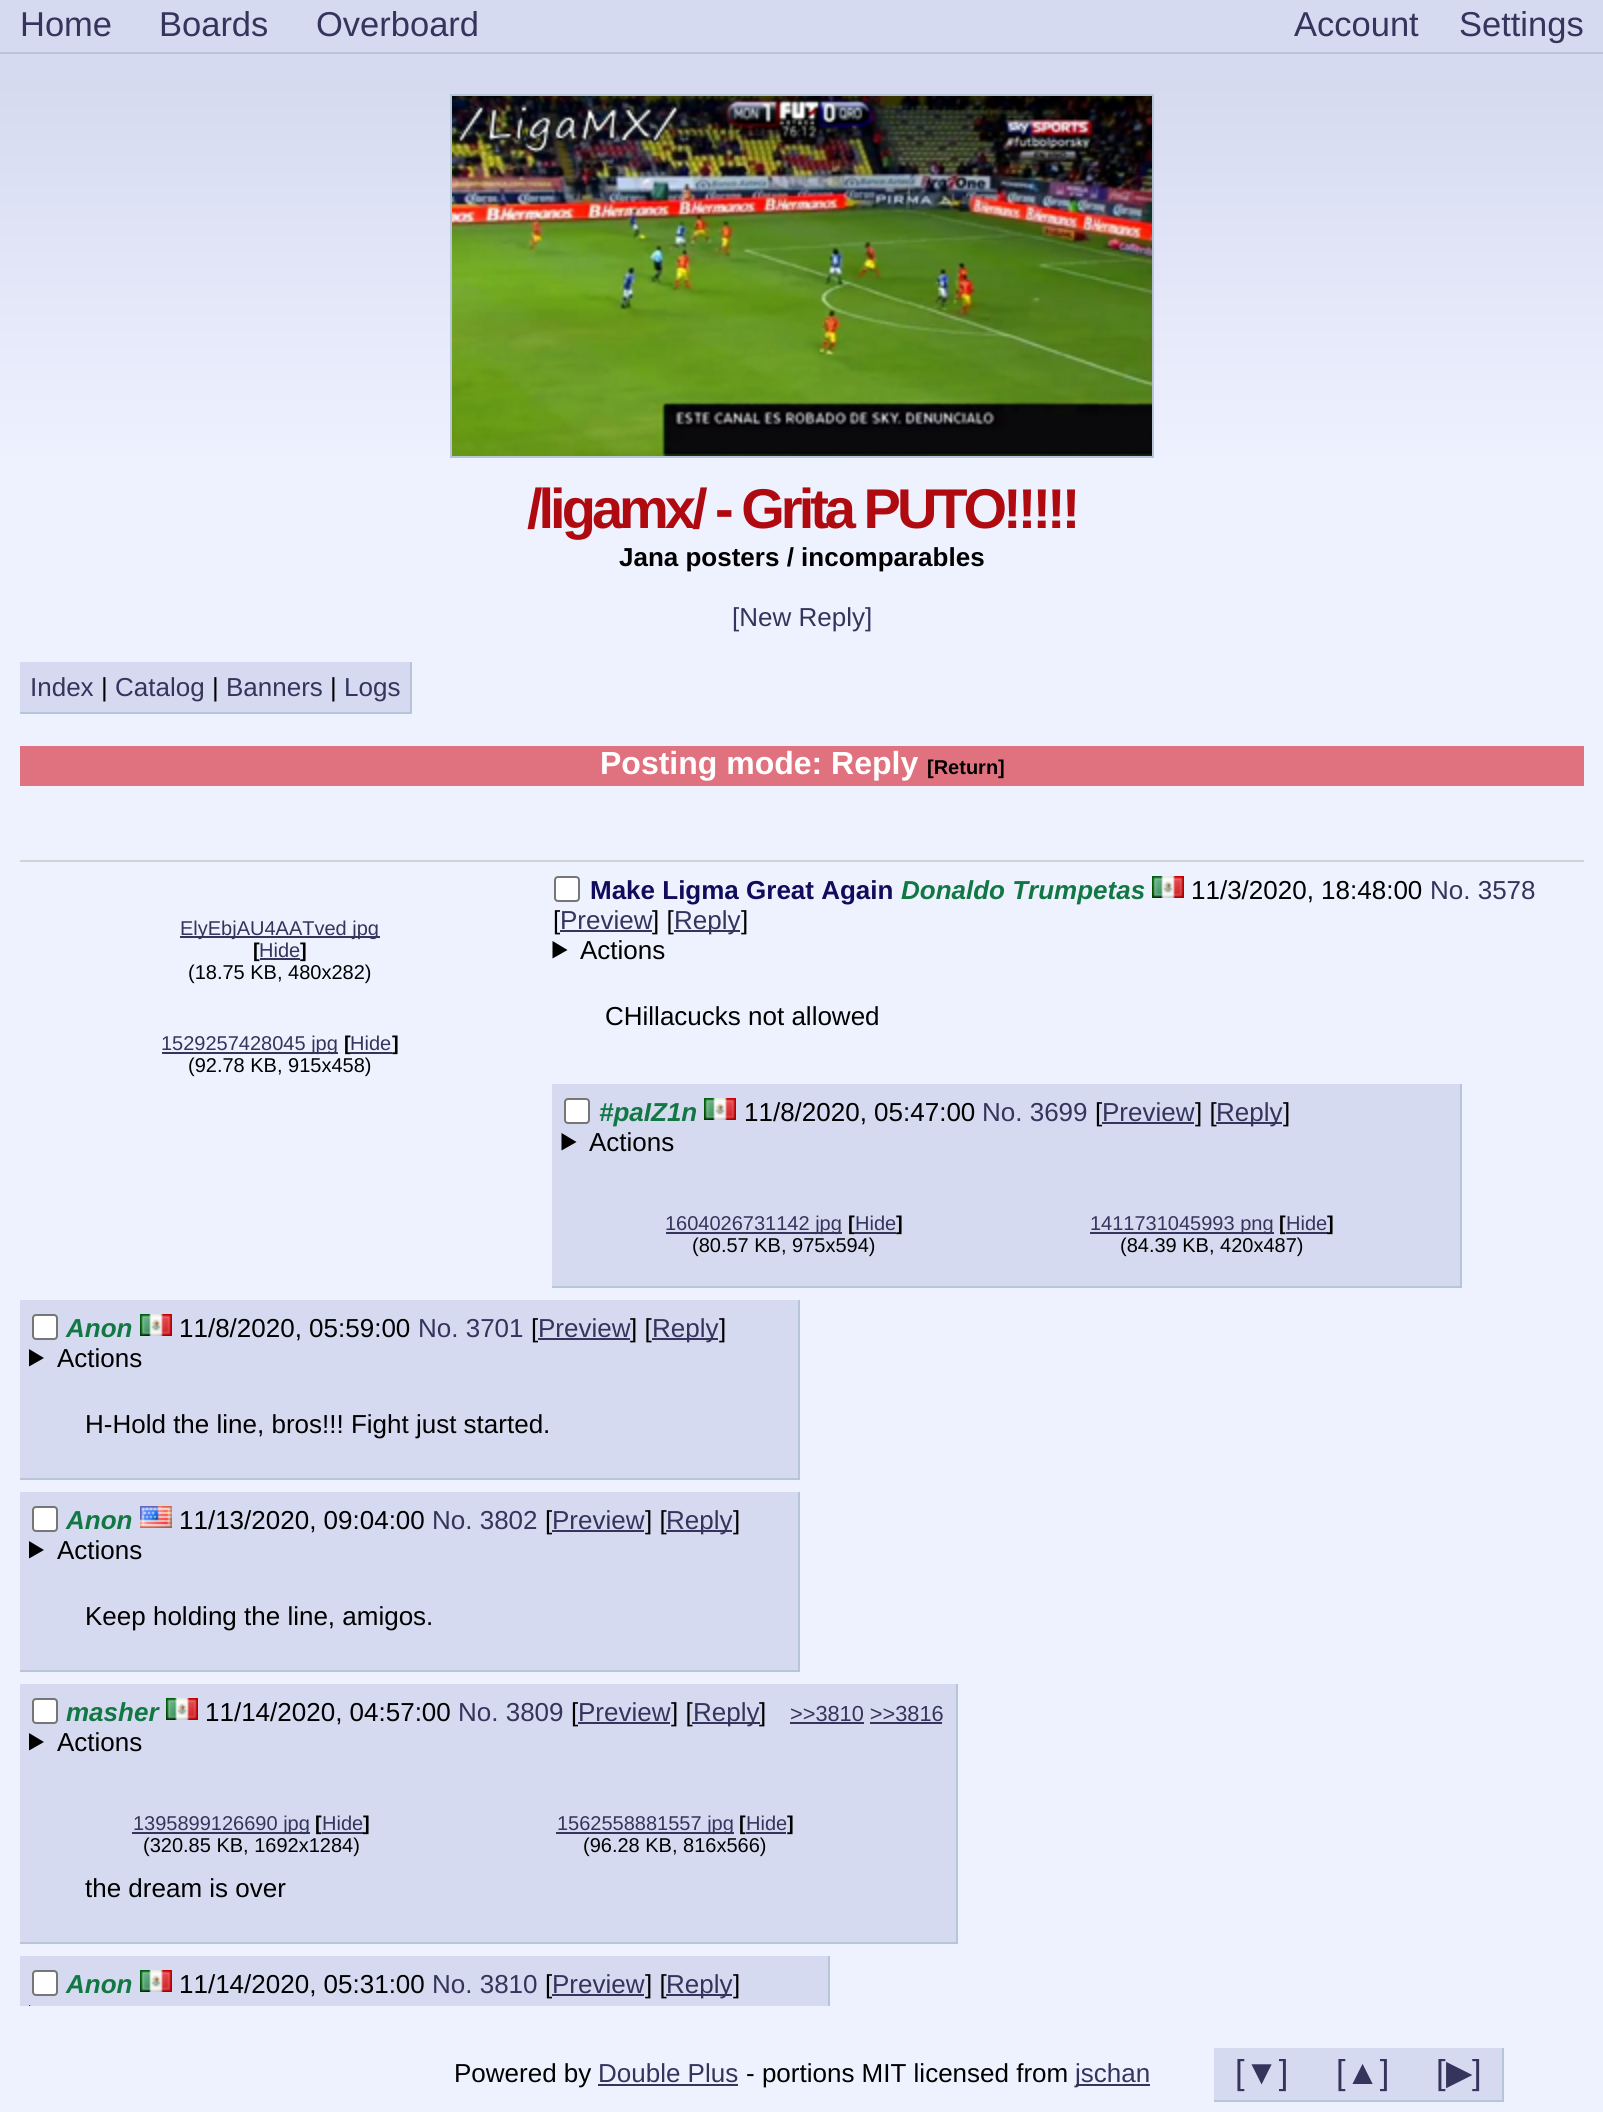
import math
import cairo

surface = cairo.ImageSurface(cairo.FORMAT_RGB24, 1603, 2112)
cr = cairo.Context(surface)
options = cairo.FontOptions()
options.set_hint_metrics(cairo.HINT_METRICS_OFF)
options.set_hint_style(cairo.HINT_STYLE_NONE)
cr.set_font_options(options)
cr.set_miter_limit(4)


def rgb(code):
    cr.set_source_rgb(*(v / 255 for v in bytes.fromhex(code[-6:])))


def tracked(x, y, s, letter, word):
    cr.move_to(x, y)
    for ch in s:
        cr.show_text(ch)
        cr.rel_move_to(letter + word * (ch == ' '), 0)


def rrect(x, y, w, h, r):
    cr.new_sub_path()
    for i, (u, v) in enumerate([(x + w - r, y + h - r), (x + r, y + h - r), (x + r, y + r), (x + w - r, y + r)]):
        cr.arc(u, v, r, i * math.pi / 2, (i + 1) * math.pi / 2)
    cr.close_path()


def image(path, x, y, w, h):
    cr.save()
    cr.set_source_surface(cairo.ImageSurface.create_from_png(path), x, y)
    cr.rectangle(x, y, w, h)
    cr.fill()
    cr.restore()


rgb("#ffffff")
cr.paint()
gradient = cairo.LinearGradient(802, 0, 802, 2112)
gradient.add_color_stop_rgba(0.04, 0.839, 0.855, 0.941, 1)
gradient.add_color_stop_rgba(0.22, 0.933, 0.949, 1, 1)
cr.set_source(gradient)
cr.rectangle(0, 0, 1603, 2112)
cr.fill()
rgb("#b7c5d9")
cr.rectangle(0, 52, 1603, 2)
cr.fill()
cr.rectangle(451, 95, 702, 362)
cr.stroke()
image("img/1.png", 452, 96, 700, 360)
for x, y, w, h, color in [
    (20, 662, 390, 50, "#d6daf0"),
    (410, 662, 2, 52, "#b7c5d9"),
    (20, 712, 392, 2, "#b7c5d9"),
    (20, 746, 1564, 40, "#e0727f"),
    (20, 860, 1564, 2, "#d3d3d3"),
    (180, 936, 200, 2, "#34345c"),
    (260, 958, 40, 2, "#34345c"),
    (162, 1052, 176, 2, "#34345c"),
]:
    rgb(color)
    cr.rectangle(x, y, w, h)
    cr.fill()
rgb("#ffffff")
rrect(555, 877, 24, 24, 3)
cr.fill_preserve()
rgb("#767676")
cr.stroke()
image("img/2.png", 1152, 876, 32, 22)
rgb("#34345c")
cr.rectangle(560, 930, 92, 2)
cr.fill()
cr.rectangle(674, 930, 66, 2)
cr.fill()
rgb("#000000")
cr.new_path()
cr.move_to(552.5, 941)
cr.line_to(567.5, 950)
cr.line_to(552.5, 958.5)
cr.close_path()
cr.fill()
for x, y, w, h, color in [
    (552, 1084, 908, 202, "#d6daf0"),
    (1460, 1084, 2, 204, "#b7c5d9"),
    (552, 1286, 910, 2, "#b7c5d9"),
]:
    rgb(color)
    cr.rectangle(x, y, w, h)
    cr.fill()
rgb("#ffffff")
rrect(565, 1099, 24, 24, 3)
cr.fill_preserve()
rgb("#767676")
cr.stroke()
image("img/2.png", 704, 1098, 32, 22)
rgb("#34345c")
cr.rectangle(1102, 1122, 92, 2)
cr.fill()
rgb("#000000")
cr.new_path()
cr.move_to(561.5, 1133)
cr.line_to(576.5, 1142)
cr.line_to(561.5, 1150.5)
cr.close_path()
cr.fill()
for x, y, w, h, color in [
    (666, 1232, 176, 2, "#34345c"),
    (1090, 1232, 184, 2, "#34345c"),
    (1286, 1232, 42, 2, "#34345c"),
    (20, 1300, 778, 178, "#d6daf0"),
    (798, 1300, 2, 180, "#b7c5d9"),
    (20, 1478, 780, 2, "#b7c5d9"),
]:
    rgb(color)
    cr.rectangle(x, y, w, h)
    cr.fill()
rgb("#ffffff")
rrect(33, 1315, 24, 24, 3)
cr.fill_preserve()
rgb("#767676")
cr.stroke()
image("img/2.png", 140, 1314, 32, 22)
rgb("#34345c")
cr.rectangle(538, 1338, 92, 2)
cr.fill()
cr.rectangle(652, 1338, 66, 2)
cr.fill()
rgb("#000000")
cr.new_path()
cr.move_to(29, 1349)
cr.line_to(44, 1358)
cr.line_to(29, 1366.5)
cr.close_path()
cr.fill()
for x, y, w, h, color in [
    (20, 1492, 778, 178, "#d6daf0"),
    (798, 1492, 2, 180, "#b7c5d9"),
    (20, 1670, 780, 2, "#b7c5d9"),
]:
    rgb(color)
    cr.rectangle(x, y, w, h)
    cr.fill()
rgb("#ffffff")
rrect(33, 1507, 24, 24, 3)
cr.fill_preserve()
rgb("#767676")
cr.stroke()
image("img/3.png", 140, 1506, 32, 22)
rgb("#34345c")
cr.rectangle(552, 1530, 92, 2)
cr.fill()
rgb("#000000")
cr.new_path()
cr.move_to(29, 1541)
cr.line_to(44, 1550)
cr.line_to(29, 1558.5)
cr.close_path()
cr.fill()
for x, y, w, h, color in [
    (20, 1684, 936, 258, "#d6daf0"),
    (956, 1684, 2, 260, "#b7c5d9"),
    (20, 1942, 938, 2, "#b7c5d9"),
]:
    rgb(color)
    cr.rectangle(x, y, w, h)
    cr.fill()
rgb("#ffffff")
rrect(33, 1699, 24, 24, 3)
cr.fill_preserve()
rgb("#767676")
cr.stroke()
image("img/2.png", 166, 1698, 32, 22)
rgb("#34345c")
cr.rectangle(790, 1722, 74, 2)
cr.fill()
cr.rectangle(870, 1722, 72, 2)
cr.fill()
rgb("#000000")
cr.new_path()
cr.move_to(29, 1733)
cr.line_to(44, 1742)
cr.line_to(29, 1750.5)
cr.close_path()
cr.fill()
for x, y, w, h, color in [
    (132, 1832, 178, 2, "#34345c"),
    (322, 1832, 42, 2, "#34345c"),
    (556, 1832, 178, 2, "#34345c"),
    (746, 1832, 40, 2, "#34345c"),
    (20, 1956, 808, 50, "#d6daf0"),
    (828, 1956, 2, 50, "#b7c5d9"),
]:
    rgb(color)
    cr.rectangle(x, y, w, h)
    cr.fill()
rgb("#ffffff")
rrect(33, 1971, 24, 24, 3)
cr.fill_preserve()
rgb("#767676")
cr.stroke()
image("img/2.png", 140, 1970, 32, 22)
rgb("#34345c")
cr.rectangle(552, 1994, 92, 2)
cr.fill()
cr.save()
cr.rectangle(0, 54, 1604, 1952)
cr.clip()
rgb("#000000")
cr.new_path()
cr.move_to(29, 2005)
cr.line_to(44, 2014)
cr.line_to(29, 2022.5)
cr.close_path()
cr.fill()
cr.restore()
for x, y, w, h, color in [
    (1214, 2048, 288, 52, "#d6daf0"),
    (1502, 2048, 2, 54, "#b7c5d9"),
    (1214, 2100, 290, 2, "#b7c5d9"),
    (598, 2084, 140, 2, "#34345c"),
    (1076, 2084, 74, 2, "#34345c"),
]:
    rgb(color)
    cr.rectangle(x, y, w, h)
    cr.fill()
cr.select_font_face("Liberation Sans")
cr.set_font_size(34.5)
for x, y, s in [
    (20, 36, "Home"),
    (159, 36, "Boards"),
    (316, 36, "Overboard"),
    (1294, 36, "Account"),
    (1459, 36, "Settings"),
]:
    cr.move_to(x, y)
    cr.show_text(s)
cr.select_font_face("Liberation Sans", cairo.FONT_SLANT_NORMAL, cairo.FONT_WEIGHT_BOLD)
cr.set_font_size(56)
rgb("#af0a0f")
tracked(527, 528, "/ligamx/ - Grita PUTO!!!!!", -4, 0)
cr.set_font_size(26)
rgb("#000000")
cr.move_to(619, 566)
cr.show_text("Jana posters / incomparables")
cr.select_font_face("Liberation Sans")
rgb("#34345c")
cr.move_to(732, 626)
cr.show_text("[New Reply]")
cr.move_to(30, 696)
cr.show_text("Index")
rgb("#000000")
cr.move_to(101, 696)
cr.show_text("|")
rgb("#34345c")
cr.move_to(115, 696)
cr.show_text("Catalog")
rgb("#000000")
cr.move_to(212, 696)
cr.show_text("|")
rgb("#34345c")
cr.move_to(226, 696)
cr.show_text("Banners")
rgb("#000000")
cr.move_to(330, 696)
cr.show_text("|")
rgb("#34345c")
cr.move_to(344, 696)
cr.show_text("Logs")
cr.select_font_face("Liberation Sans", cairo.FONT_SLANT_NORMAL, cairo.FONT_WEIGHT_BOLD)
cr.set_font_size(32)
rgb("#ffffff")
cr.move_to(600, 774)
cr.show_text("Posting mode: Reply")
cr.set_font_size(20)
rgb("#000000")
cr.move_to(927, 774)
cr.show_text("[Return]")
cr.select_font_face("Liberation Sans")
rgb("#34345c")
cr.move_to(180, 935)
cr.show_text("ElyEbjAU4AATved jpg")
cr.select_font_face("Liberation Sans", cairo.FONT_SLANT_NORMAL, cairo.FONT_WEIGHT_BOLD)
rgb("#000000")
cr.move_to(253, 957)
cr.show_text("[")
cr.select_font_face("Liberation Sans")
rgb("#34345c")
cr.move_to(259, 957)
cr.show_text("Hide")
cr.select_font_face("Liberation Sans", cairo.FONT_SLANT_NORMAL, cairo.FONT_WEIGHT_BOLD)
rgb("#000000")
cr.move_to(300, 957)
cr.show_text("]")
cr.select_font_face("Liberation Sans")
cr.move_to(188, 979)
cr.show_text("(18.75 KB, 480x282)")
rgb("#34345c")
cr.move_to(161, 1050)
cr.show_text("1529257428045 jpg")
cr.select_font_face("Liberation Sans", cairo.FONT_SLANT_NORMAL, cairo.FONT_WEIGHT_BOLD)
rgb("#000000")
cr.move_to(344, 1050)
cr.show_text("[")
rgb("#34345c")
cr.rectangle(350, 1052, 42, 2)
cr.fill()
cr.select_font_face("Liberation Sans")
cr.move_to(350, 1050)
cr.show_text("Hide")
cr.select_font_face("Liberation Sans", cairo.FONT_SLANT_NORMAL, cairo.FONT_WEIGHT_BOLD)
rgb("#000000")
cr.move_to(392, 1050)
cr.show_text("]")
cr.select_font_face("Liberation Sans")
cr.move_to(188, 1072)
cr.show_text("(92.78 KB, 915x458)")
cr.select_font_face("Liberation Sans", cairo.FONT_SLANT_NORMAL, cairo.FONT_WEIGHT_BOLD)
cr.set_font_size(26)
rgb("#0f0c5d")
cr.move_to(590, 899)
cr.show_text("Make Ligma Great Again")
cr.select_font_face("Liberation Sans", cairo.FONT_SLANT_ITALIC, cairo.FONT_WEIGHT_BOLD)
rgb("#117743")
cr.move_to(901, 899)
cr.show_text("Donaldo Trumpetas")
cr.select_font_face("Liberation Sans")
rgb("#000000")
cr.move_to(1191, 899)
cr.show_text("11/3/2020, 18:48:00")
rgb("#34345c")
cr.move_to(1430, 899)
cr.show_text("No. 3578")
rgb("#000000")
cr.move_to(553, 929)
cr.show_text("[")
rgb("#34345c")
cr.move_to(560, 929)
cr.show_text("Preview")
rgb("#000000")
cr.move_to(652, 929)
cr.show_text("] [")
rgb("#34345c")
cr.move_to(674, 929)
cr.show_text("Reply")
rgb("#000000")
for x, y, s in [
    (741, 929, "]"),
    (580, 959, "Actions"),
    (605, 1025, "CHillacucks not allowed"),
]:
    cr.move_to(x, y)
    cr.show_text(s)
cr.select_font_face("Liberation Sans", cairo.FONT_SLANT_ITALIC, cairo.FONT_WEIGHT_BOLD)
rgb("#117743")
cr.move_to(599, 1121)
cr.show_text("#paIZ1n")
cr.select_font_face("Liberation Sans")
rgb("#000000")
cr.move_to(744, 1121)
cr.show_text("11/8/2020, 05:47:00")
rgb("#34345c")
cr.move_to(982, 1121)
cr.show_text("No. 3699")
rgb("#000000")
cr.move_to(1095, 1121)
cr.show_text("[")
rgb("#34345c")
cr.move_to(1102, 1121)
cr.show_text("Preview")
rgb("#000000")
cr.move_to(1195, 1121)
cr.show_text("] [")
rgb("#34345c")
cr.rectangle(1216, 1122, 66, 2)
cr.fill()
cr.move_to(1216, 1121)
cr.show_text("Reply")
rgb("#000000")
cr.move_to(1283, 1121)
cr.show_text("]")
cr.move_to(589, 1151)
cr.show_text("Actions")
cr.set_font_size(20)
rgb("#34345c")
cr.move_to(665, 1230)
cr.show_text("1604026731142 jpg")
cr.select_font_face("Liberation Sans", cairo.FONT_SLANT_NORMAL, cairo.FONT_WEIGHT_BOLD)
rgb("#000000")
cr.move_to(848, 1230)
cr.show_text("[")
rgb("#34345c")
cr.rectangle(854, 1232, 42, 2)
cr.fill()
cr.select_font_face("Liberation Sans")
cr.move_to(855, 1230)
cr.show_text("Hide")
cr.select_font_face("Liberation Sans", cairo.FONT_SLANT_NORMAL, cairo.FONT_WEIGHT_BOLD)
rgb("#000000")
cr.move_to(896, 1230)
cr.show_text("]")
cr.select_font_face("Liberation Sans")
cr.move_to(692, 1252)
cr.show_text("(80.57 KB, 975x594)")
rgb("#34345c")
cr.move_to(1090, 1230)
cr.show_text("1411731045993 png")
cr.select_font_face("Liberation Sans", cairo.FONT_SLANT_NORMAL, cairo.FONT_WEIGHT_BOLD)
rgb("#000000")
cr.move_to(1279, 1230)
cr.show_text("[")
cr.select_font_face("Liberation Sans")
rgb("#34345c")
cr.move_to(1286, 1230)
cr.show_text("Hide")
cr.select_font_face("Liberation Sans", cairo.FONT_SLANT_NORMAL, cairo.FONT_WEIGHT_BOLD)
rgb("#000000")
cr.move_to(1327, 1230)
cr.show_text("]")
cr.select_font_face("Liberation Sans")
cr.move_to(1120, 1252)
cr.show_text("(84.39 KB, 420x487)")
cr.select_font_face("Liberation Sans", cairo.FONT_SLANT_ITALIC, cairo.FONT_WEIGHT_BOLD)
cr.set_font_size(26)
rgb("#117743")
cr.move_to(66, 1337)
cr.show_text("Anon")
cr.select_font_face("Liberation Sans")
rgb("#000000")
cr.move_to(179, 1337)
cr.show_text("11/8/2020, 05:59:00")
rgb("#34345c")
cr.move_to(418, 1337)
cr.show_text("No. 3701")
rgb("#000000")
cr.move_to(531, 1337)
cr.show_text("[")
rgb("#34345c")
cr.move_to(538, 1337)
cr.show_text("Preview")
rgb("#000000")
cr.move_to(630, 1337)
cr.show_text("] [")
rgb("#34345c")
cr.move_to(652, 1337)
cr.show_text("Reply")
rgb("#000000")
for x, y, s in [
    (719, 1337, "]"),
    (57, 1367, "Actions"),
    (85, 1433, "H-Hold the line, bros!!! Fight just started."),
]:
    cr.move_to(x, y)
    cr.show_text(s)
cr.select_font_face("Liberation Sans", cairo.FONT_SLANT_ITALIC, cairo.FONT_WEIGHT_BOLD)
rgb("#117743")
cr.move_to(66, 1529)
cr.show_text("Anon")
cr.select_font_face("Liberation Sans")
rgb("#000000")
cr.move_to(179, 1529)
cr.show_text("11/13/2020, 09:04:00")
rgb("#34345c")
cr.move_to(432, 1529)
cr.show_text("No. 3802")
rgb("#000000")
cr.move_to(545, 1529)
cr.show_text("[")
rgb("#34345c")
cr.move_to(552, 1529)
cr.show_text("Preview")
rgb("#000000")
cr.move_to(645, 1529)
cr.show_text("] [")
rgb("#34345c")
cr.rectangle(666, 1530, 66, 2)
cr.fill()
cr.move_to(666, 1529)
cr.show_text("Reply")
rgb("#000000")
for x, y, s in [
    (733, 1529, "]"),
    (57, 1559, "Actions"),
    (85, 1625, "Keep holding the line, amigos."),
]:
    cr.move_to(x, y)
    cr.show_text(s)
cr.select_font_face("Liberation Sans", cairo.FONT_SLANT_ITALIC, cairo.FONT_WEIGHT_BOLD)
rgb("#117743")
cr.move_to(66, 1721)
cr.show_text("masher")
cr.select_font_face("Liberation Sans")
rgb("#000000")
cr.move_to(205, 1721)
cr.show_text("11/14/2020, 04:57:00")
rgb("#34345c")
cr.move_to(458, 1721)
cr.show_text("No. 3809")
rgb("#000000")
cr.move_to(571, 1721)
cr.show_text("[")
rgb("#34345c")
cr.move_to(578, 1721)
cr.show_text("Preview")
cr.rectangle(578, 1722, 92, 2)
cr.fill()
rgb("#000000")
cr.move_to(671, 1721)
cr.show_text("] [")
rgb("#34345c")
cr.rectangle(692, 1722, 68, 2)
cr.fill()
cr.move_to(693, 1721)
cr.show_text("Reply")
rgb("#000000")
cr.move_to(759, 1721)
cr.show_text("]")
cr.set_font_size(21.75)
rgb("#34345c")
cr.move_to(790, 1721)
cr.show_text(">>3810 >>3816")
cr.set_font_size(26)
rgb("#000000")
cr.move_to(57, 1751)
cr.show_text("Actions")
cr.set_font_size(20)
rgb("#34345c")
cr.move_to(133, 1830)
cr.show_text("1395899126690 jpg")
cr.select_font_face("Liberation Sans", cairo.FONT_SLANT_NORMAL, cairo.FONT_WEIGHT_BOLD)
rgb("#000000")
cr.move_to(315, 1830)
cr.show_text("[")
cr.select_font_face("Liberation Sans")
rgb("#34345c")
cr.move_to(322, 1830)
cr.show_text("Hide")
cr.select_font_face("Liberation Sans", cairo.FONT_SLANT_NORMAL, cairo.FONT_WEIGHT_BOLD)
rgb("#000000")
cr.move_to(363, 1830)
cr.show_text("]")
cr.select_font_face("Liberation Sans")
cr.move_to(143, 1852)
cr.show_text("(320.85 KB, 1692x1284)")
rgb("#34345c")
cr.move_to(557, 1830)
cr.show_text("1562558881557 jpg")
cr.select_font_face("Liberation Sans", cairo.FONT_SLANT_NORMAL, cairo.FONT_WEIGHT_BOLD)
rgb("#000000")
cr.move_to(739, 1830)
cr.show_text("[")
cr.select_font_face("Liberation Sans")
rgb("#34345c")
cr.move_to(746, 1830)
cr.show_text("Hide")
cr.select_font_face("Liberation Sans", cairo.FONT_SLANT_NORMAL, cairo.FONT_WEIGHT_BOLD)
rgb("#000000")
cr.move_to(787, 1830)
cr.show_text("]")
cr.select_font_face("Liberation Sans")
cr.move_to(583, 1852)
cr.show_text("(96.28 KB, 816x566)")
cr.set_font_size(26)
cr.move_to(85, 1897)
cr.show_text("the dream is over")
cr.select_font_face("Liberation Sans", cairo.FONT_SLANT_ITALIC, cairo.FONT_WEIGHT_BOLD)
rgb("#117743")
cr.move_to(66, 1993)
cr.show_text("Anon")
cr.select_font_face("Liberation Sans")
rgb("#000000")
cr.move_to(179, 1993)
cr.show_text("11/14/2020, 05:31:00")
rgb("#34345c")
cr.move_to(432, 1993)
cr.show_text("No. 3810")
rgb("#000000")
cr.move_to(545, 1993)
cr.show_text("[")
rgb("#34345c")
cr.move_to(552, 1993)
cr.show_text("Preview")
rgb("#000000")
cr.move_to(645, 1993)
cr.show_text("] [")
rgb("#34345c")
cr.rectangle(666, 1994, 66, 2)
cr.fill()
cr.move_to(666, 1993)
cr.show_text("Reply")
rgb("#000000")
cr.move_to(733, 1993)
cr.show_text("]")
cr.set_font_size(34.5)
rgb("#34345c")
for x, y, s in [
    (1235, 2084, "[▼]"),
    (1336, 2084, "[▲]"),
    (1436, 2084, "["),
]:
    cr.move_to(x, y)
    cr.show_text(s)
cr.select_font_face("DejaVu Sans")
cr.move_to(1446, 2084)
cr.show_text("▶")
cr.select_font_face("Liberation Sans")
cr.move_to(1472, 2084)
cr.show_text("]")
cr.set_font_size(26)
rgb("#000000")
cr.move_to(454, 2082)
cr.show_text("Powered by")
rgb("#34345c")
cr.move_to(598, 2082)
cr.show_text("Double Plus")
rgb("#000000")
cr.move_to(746, 2082)
cr.show_text("- portions MIT licensed from")
rgb("#34345c")
cr.move_to(1075, 2082)
cr.show_text("jschan")
surface.write_to_png("page.png")
